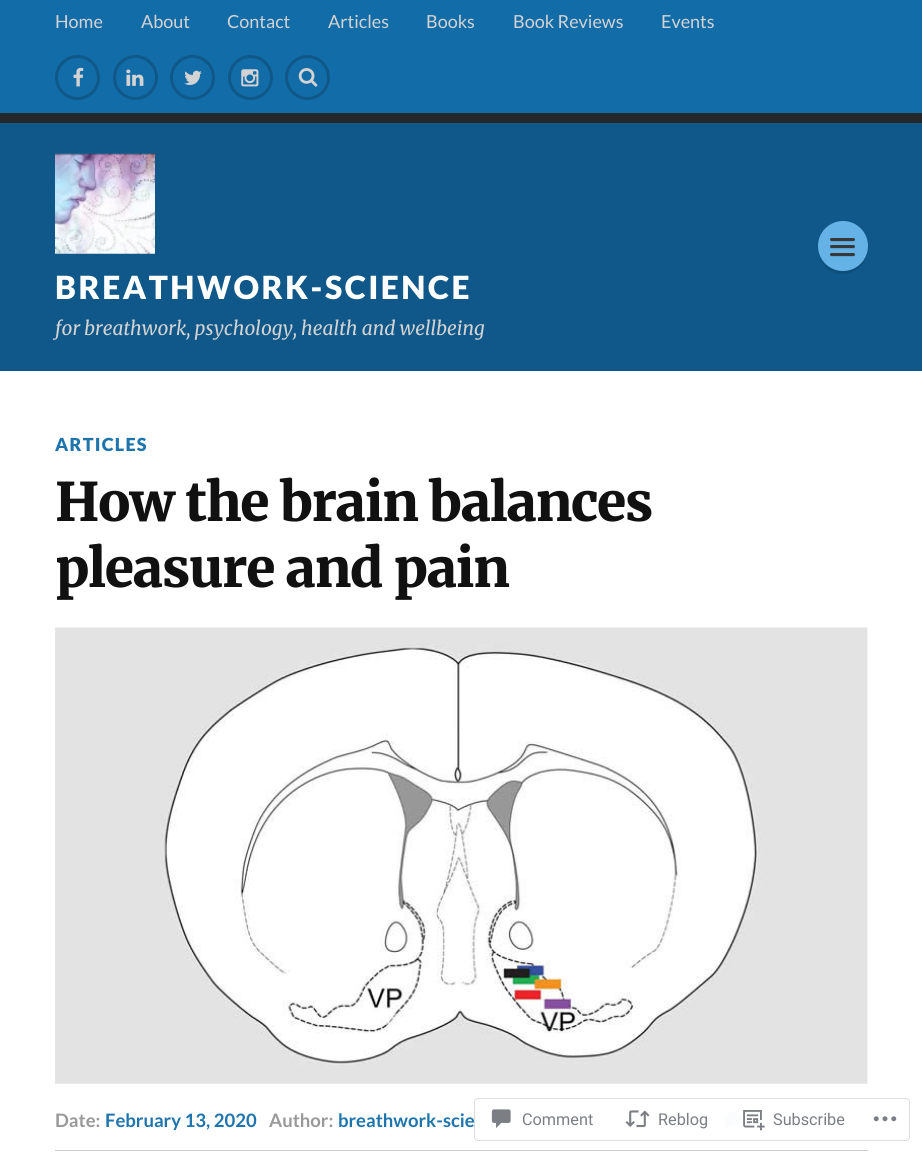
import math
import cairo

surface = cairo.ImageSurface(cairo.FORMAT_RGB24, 922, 1153)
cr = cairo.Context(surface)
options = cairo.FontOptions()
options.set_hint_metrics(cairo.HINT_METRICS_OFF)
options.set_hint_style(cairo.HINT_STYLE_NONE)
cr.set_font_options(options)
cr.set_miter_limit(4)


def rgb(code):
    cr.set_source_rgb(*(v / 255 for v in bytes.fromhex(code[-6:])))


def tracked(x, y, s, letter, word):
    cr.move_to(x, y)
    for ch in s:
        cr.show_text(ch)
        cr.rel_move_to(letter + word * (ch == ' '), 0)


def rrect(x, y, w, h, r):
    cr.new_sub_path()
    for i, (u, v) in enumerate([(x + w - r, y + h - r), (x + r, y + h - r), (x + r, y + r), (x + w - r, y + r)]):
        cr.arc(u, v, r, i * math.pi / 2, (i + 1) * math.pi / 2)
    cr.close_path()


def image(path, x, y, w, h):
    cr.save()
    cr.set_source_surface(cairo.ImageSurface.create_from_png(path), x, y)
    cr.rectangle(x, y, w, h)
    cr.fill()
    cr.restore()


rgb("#ffffff")
cr.paint()
rgb("#126ca7")
cr.rectangle(0, 0, 922, 113)
cr.fill()
cr.arc(77.5, 77.5, 21, 0, 2 * math.pi)
rgb("#0f5889")
cr.set_line_width(3)
cr.stroke()
image("img/1.png", 73, 67, 11, 20)
cr.arc(135.5, 77.5, 21, 0, 2 * math.pi)
cr.stroke()
image("img/2.png", 126, 69, 18, 17)
cr.arc(192.5, 77.5, 21, 0, 2 * math.pi)
cr.stroke()
image("img/3.png", 184, 70, 18, 15)
cr.arc(250.5, 77.5, 21, 0, 2 * math.pi)
cr.stroke()
image("img/4.png", 241, 69, 18, 18)
cr.arc(307.5, 77.5, 21, 0, 2 * math.pi)
cr.stroke()
image("img/5.png", 298, 68, 20, 19)
cr.rectangle(0, 123, 922, 248)
cr.fill()
rgb("#26272b")
cr.rectangle(0, 113, 922, 10)
cr.fill()
image("img/6.png", 55, 153, 100, 101)
rgb("#0e4f7b")
cr.new_path()
cr.move_to(818, 252)
cr.curve_to(819, 258, 822, 264, 826, 268)
cr.curve_to(845, 284, 873, 266, 867, 243)
cr.curve_to(871, 274, 825, 282, 818, 252)
cr.close_path()
cr.fill()
rgb("#65b2e6")
cr.arc(843, 246, 25, 0, 2 * math.pi)
cr.fill()
rgb("#5ba0cf")
cr.new_path()
cr.move_to(830.5, 239.5)
cr.curve_to(828, 242.5, 835, 242, 835, 242)
cr.line_to(850, 242)
cr.curve_to(850, 242, 857, 242.5, 854.5, 239.5)
cr.line_to(854, 240)
cr.curve_to(851.5, 240, 831, 240.5, 830.5, 239.5)
cr.close_path()
cr.fill()
rgb("#383838")
rrect(830, 238, 25, 3, 1.5)
cr.fill()
rgb("#5ba0cf")
cr.new_path()
cr.move_to(830, 247)
cr.curve_to(829, 249.5, 834.5, 249, 835, 249)
cr.line_to(850, 249)
cr.curve_to(850.5, 249, 856, 249.5, 855, 247)
cr.line_to(854, 247.5)
cr.line_to(831, 247.5)
cr.close_path()
cr.fill()
rgb("#383838")
rrect(830, 245, 25, 3, 1.5)
cr.fill()
rgb("#5ba0cf")
cr.new_path()
cr.move_to(830.5, 254.5)
cr.curve_to(828, 257.5, 835, 257, 835, 257)
cr.line_to(850, 257)
cr.curve_to(850, 257, 857, 257.5, 854.5, 254.5)
cr.line_to(854, 255)
cr.curve_to(851.5, 255, 831, 255.5, 830.5, 254.5)
cr.close_path()
cr.fill()
rgb("#383838")
rrect(830, 253, 25, 3, 1.5)
cr.fill()
image("img/7.png", 55, 627, 813, 457)
rgb("#cccccc")
cr.rectangle(55, 1150, 813, 1)
cr.fill()
image("img/8.png", 723, 1111, 20, 17)
cr.select_font_face("Lato")
cr.set_font_size(18)
rgb("#d3d3d3")
for x, y, s in [
    (55, 28, "Home"),
    (141, 28, "About"),
    (227, 28, "Contact"),
    (328, 28, "Articles"),
    (426, 28, "Books"),
    (513, 28, "Book Reviews"),
    (661, 28, "Events"),
]:
    cr.move_to(x, y)
    cr.show_text(s)
cr.select_font_face("Lato Black")
cr.set_font_size(31.9)
rgb("#ffffff")
tracked(55, 299, "BREATHWORK-SCIENCE", 2.5, 0)
cr.select_font_face("Merriweather Light", cairo.FONT_SLANT_ITALIC)
cr.set_font_size(19.1)
rgb("#d3d3d3")
cr.move_to(55, 335)
cr.show_text("for breathwork, psychology, health and wellbeing")
cr.select_font_face("Lato Black")
cr.set_font_size(18)
rgb("#1e74ad")
tracked(55, 451, "ARTICLES", 1.25, 0)
cr.select_font_face("Merriweather Black")
cr.set_font_size(53.1)
rgb("#111111")
tracked(55, 521, "How the brain balances", -1.25, 0)
tracked(55, 587, "pleasure and pain", -1.25, 0)
cr.select_font_face("Lato", cairo.FONT_SLANT_NORMAL, cairo.FONT_WEIGHT_BOLD)
cr.set_font_size(18.5)
rgb("#999999")
cr.move_to(55, 1127)
cr.show_text("Date:")
rgb("#1e74ad")
cr.move_to(105, 1127)
cr.show_text("February 13, 2020")
rgb("#999999")
cr.move_to(269, 1127)
cr.show_text("Author:")
rgb("#1e74ad")
cr.move_to(338, 1127)
cr.show_text("breathwork-scie")
cr.set_source_rgba(1, 1, 1, 0.98)
rrect(474.5, 1098.5, 435, 42, 3.5)
cr.fill_preserve()
rgb("#dddddf")
cr.set_line_width(1)
cr.stroke()
image("img/9.png", 491, 1109, 20, 19)
cr.select_font_face("Roboto")
cr.set_font_size(16.25)
rgb("#7b7f85")
cr.move_to(522, 1125)
cr.show_text("Comment")
image("img/10.png", 625, 1110, 25, 18)
cr.move_to(658, 1125)
cr.show_text("Reblog")
image("img/11.png", 743, 1110, 22, 21)
cr.move_to(773, 1125)
cr.show_text("Subscribe")
image("img/12.png", 873, 1116, 24, 6)
surface.write_to_png("page.png")
